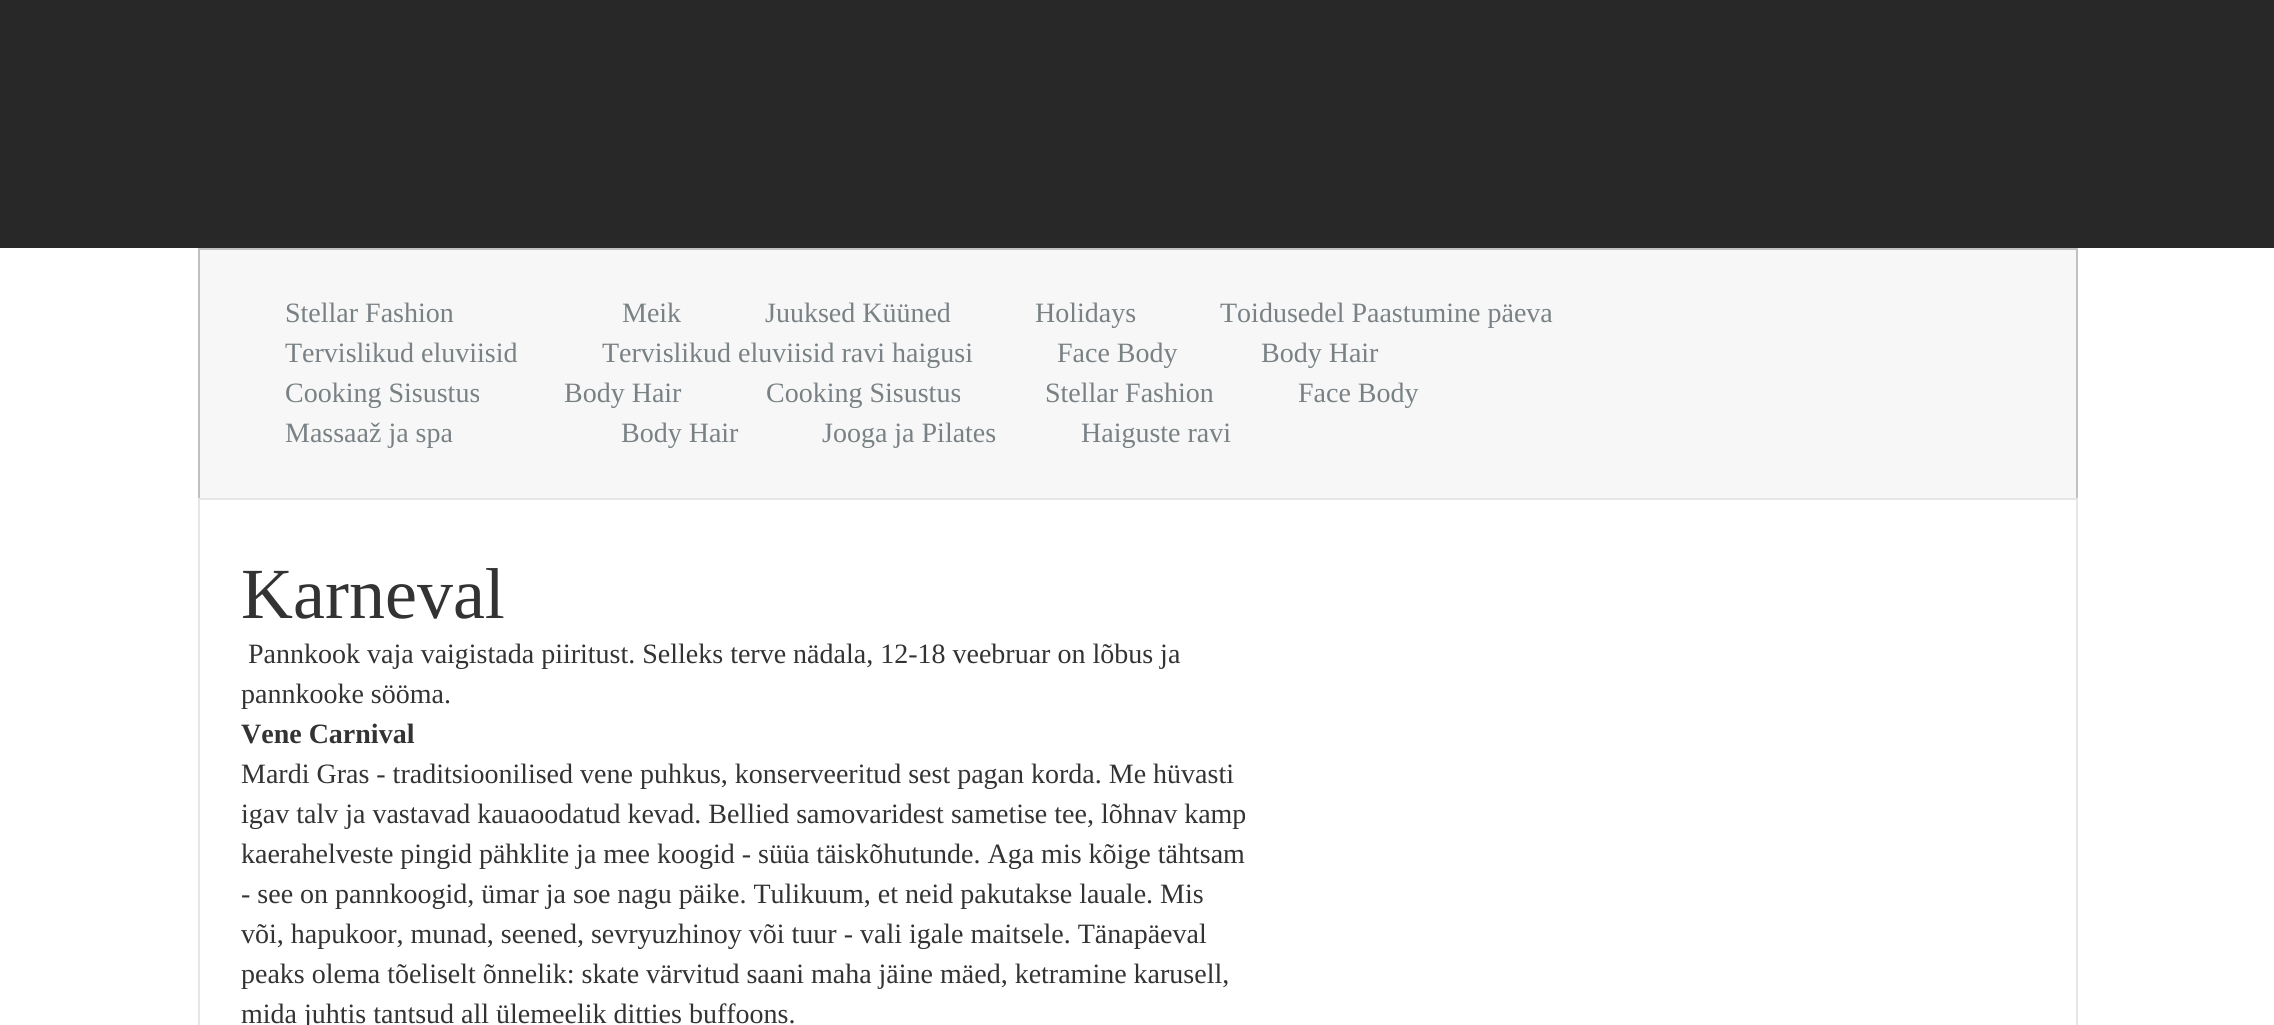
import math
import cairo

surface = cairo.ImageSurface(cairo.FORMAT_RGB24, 2274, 1025)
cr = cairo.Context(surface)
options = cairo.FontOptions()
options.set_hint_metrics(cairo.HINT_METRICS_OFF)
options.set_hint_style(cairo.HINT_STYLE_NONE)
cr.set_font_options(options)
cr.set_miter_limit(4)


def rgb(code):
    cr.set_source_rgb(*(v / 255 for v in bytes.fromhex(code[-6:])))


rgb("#ffffff")
cr.paint()
for x, y, w, h, color in [
    (0, 0, 2274, 248, "#282828"),
    (200, 250, 1876, 248, "#f7f7f7"),
    (198, 248, 1880, 2, "#c1c1c1"),
    (2076, 248, 2, 250, "#c1c1c1"),
    (198, 248, 2, 250, "#c1c1c1"),
]:
    rgb(color)
    cr.rectangle(x, y, w, h)
    cr.fill()
cr.rectangle(199, 499, 1878, 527)
rgb("#e6e6e6")
cr.stroke()
cr.select_font_face("Liberation Serif")
cr.set_font_size(28)
rgb("#798184")
for x, y, s in [
    (285, 322, "Stellar Fashion"),
    (622, 322, "Meik"),
    (765, 322, "Juuksed Küüned"),
    (1035, 322, "Holidays"),
    (1220, 322, "Toidusedel Paastumine päeva"),
    (285, 362, "Tervislikud eluviisid"),
    (602, 362, "Tervislikud eluviisid ravi haigusi"),
    (1057, 362, "Face Body"),
    (1261, 362, "Body Hair"),
    (285, 402, "Cooking Sisustus"),
    (564, 402, "Body Hair"),
    (766, 402, "Cooking Sisustus"),
    (1045, 402, "Stellar Fashion"),
    (1298, 402, "Face Body"),
    (285, 442, "Massaaž ja spa"),
    (621, 442, "Body Hair"),
    (822, 442, "Jooga ja Pilates"),
    (1081, 442, "Haiguste ravi"),
]:
    cr.move_to(x, y)
    cr.show_text(s)
cr.set_font_size(72)
rgb("#333333")
cr.move_to(241, 618)
cr.show_text("Karneval")
cr.set_font_size(28)
cr.move_to(248, 663)
cr.show_text("Pannkook vaja vaigistada piiritust. Selleks terve nädala, 12-18 veebruar on lõbus ja")
cr.move_to(241, 703)
cr.show_text("pannkooke sööma.")
cr.select_font_face("Liberation Serif", cairo.FONT_SLANT_NORMAL, cairo.FONT_WEIGHT_BOLD)
cr.move_to(241, 743)
cr.show_text("Vene Carnival")
cr.select_font_face("Liberation Serif")
for x, y, s in [
    (241, 783, "Mardi Gras - traditsioonilised vene puhkus, konserveeritud sest pagan korda. Me hüvasti"),
    (241, 823, "igav talv ja vastavad kauaoodatud kevad. Bellied samovaridest sametise tee, lõhnav kamp"),
    (241, 863, "kaerahelveste pingid pähklite ja mee koogid - süüa täiskõhutunde. Aga mis kõige tähtsam"),
    (241, 903, "- see on pannkoogid, ümar ja soe nagu päike. Tulikuum, et neid pakutakse lauale. Mis"),
    (241, 943, "või, hapukoor, munad, seened, sevryuzhinoy või tuur - vali igale maitsele. Tänapäeval"),
    (241, 983, "peaks olema tõeliselt õnnelik: skate värvitud saani maha jäine mäed, ketramine karusell,"),
    (241, 1023, "mida juhtis tantsud all ülemeelik ditties buffoons."),
]:
    cr.move_to(x, y)
    cr.show_text(s)
surface.write_to_png("page.png")
